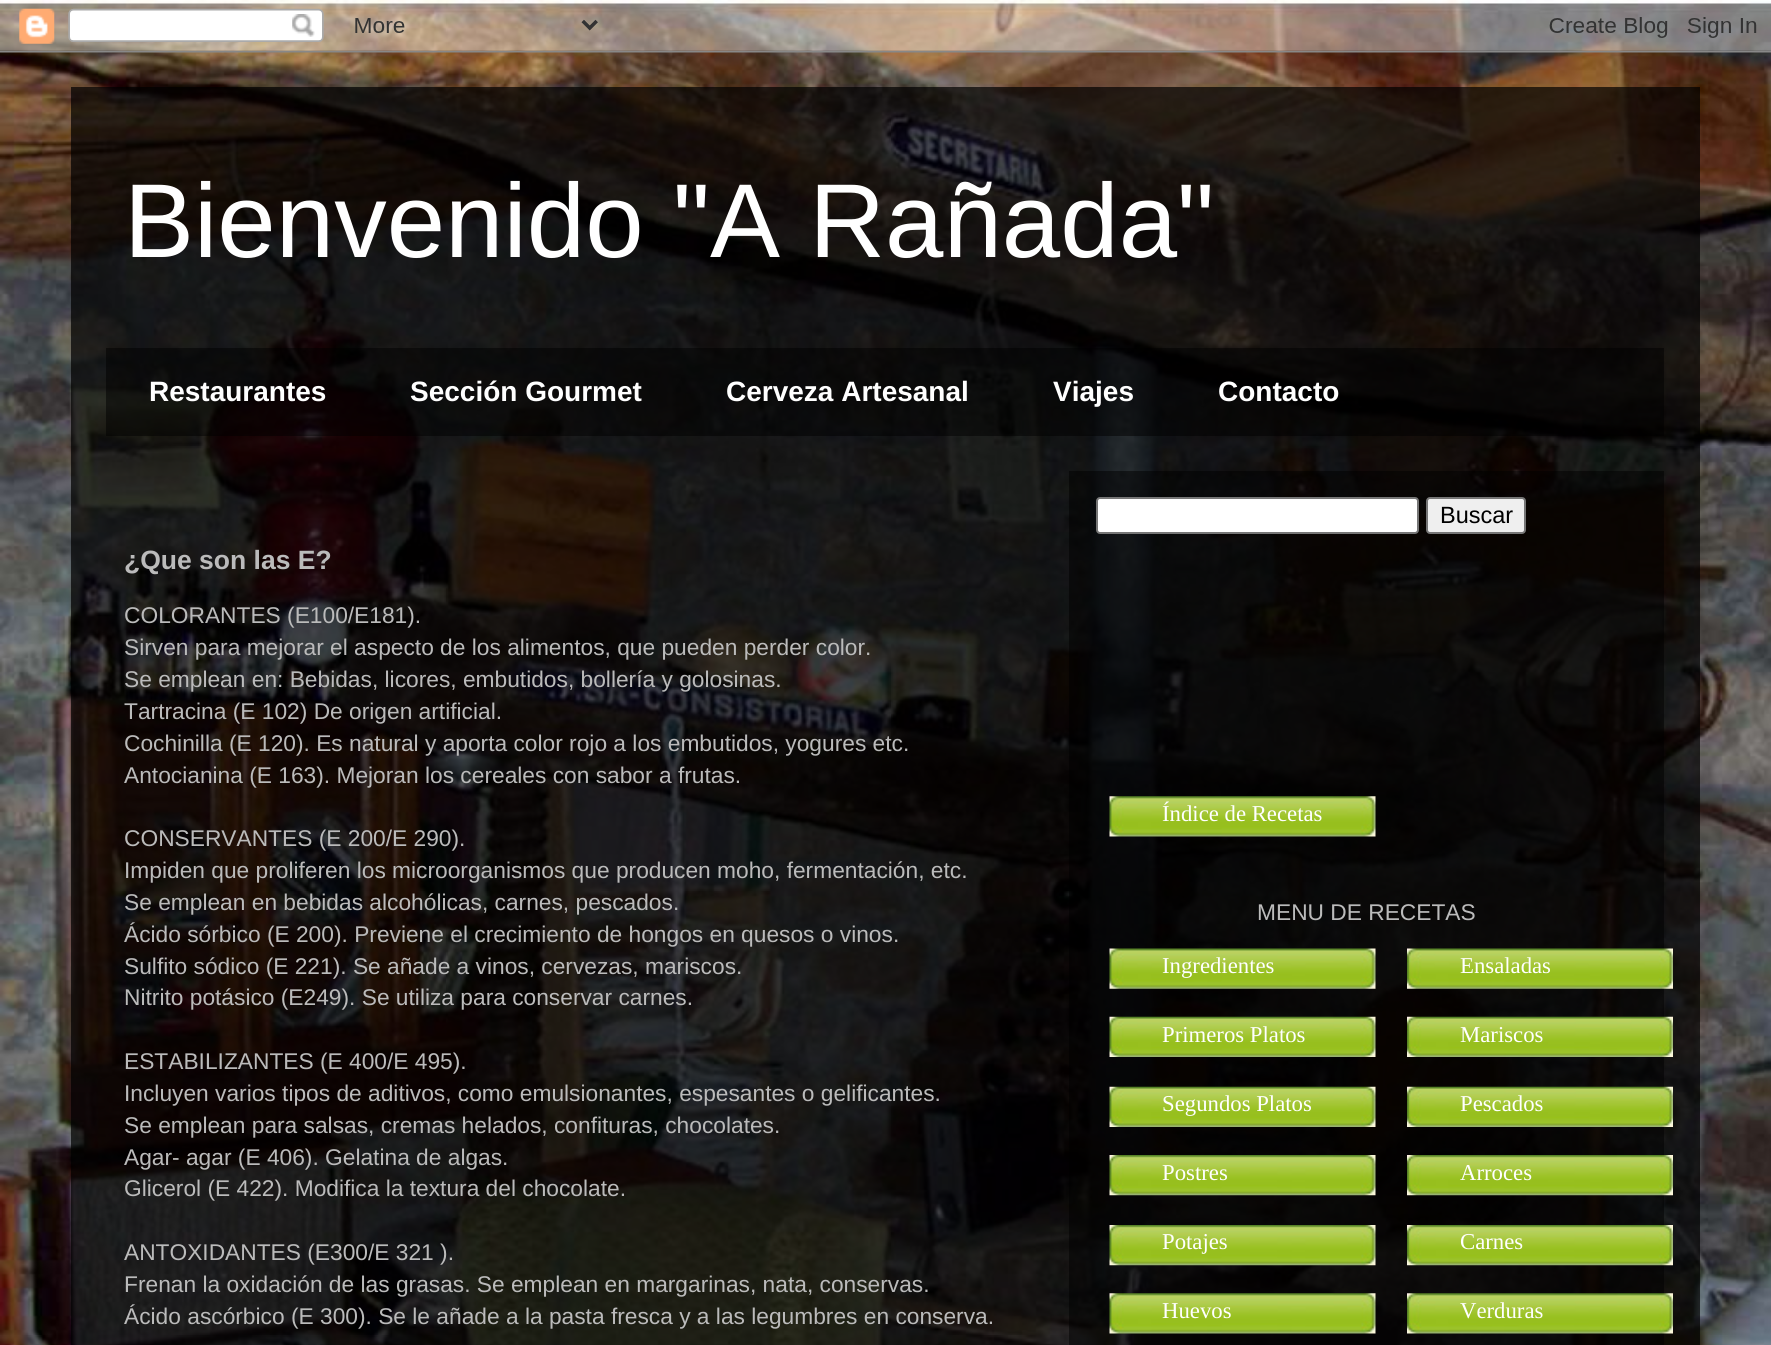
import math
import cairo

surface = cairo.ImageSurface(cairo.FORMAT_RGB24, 1771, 1345)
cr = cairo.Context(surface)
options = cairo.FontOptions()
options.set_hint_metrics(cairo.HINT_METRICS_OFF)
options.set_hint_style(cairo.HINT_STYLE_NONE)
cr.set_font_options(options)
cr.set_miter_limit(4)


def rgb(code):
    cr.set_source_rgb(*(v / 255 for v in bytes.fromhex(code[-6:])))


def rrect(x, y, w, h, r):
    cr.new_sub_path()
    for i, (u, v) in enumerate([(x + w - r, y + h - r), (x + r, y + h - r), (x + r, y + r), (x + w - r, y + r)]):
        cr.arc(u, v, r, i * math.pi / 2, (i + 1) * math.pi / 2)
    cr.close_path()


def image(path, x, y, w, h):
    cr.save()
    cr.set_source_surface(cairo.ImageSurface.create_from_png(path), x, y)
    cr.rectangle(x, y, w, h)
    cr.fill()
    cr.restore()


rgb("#ffffff")
cr.paint()
image("img/1.png", 0, 0, 1771, 1345)
image("img/2.png", 0, 0, 1771, 53)
cr.set_source_rgba(0, 0, 0, 0.7)
cr.rectangle(71, 87, 1629, 1258)
cr.fill()
cr.set_source_rgba(0, 0, 0, 0.5)
cr.rectangle(106, 348, 1558, 88)
cr.fill()
cr.rectangle(1069, 471, 595, 874)
cr.fill()
rgb("#ffffff")
rrect(1097, 498, 321, 35, 3)
cr.fill_preserve()
rgb("#767676")
cr.stroke()
rgb("#efefef")
rrect(1427, 498, 98, 35, 3)
cr.fill_preserve()
rgb("#767676")
cr.stroke()
image("img/3.png", 1109, 796, 267, 41)
image("img/4.png", 1109, 948, 267, 41)
image("img/5.png", 1109, 1016, 267, 41)
image("img/6.png", 1109, 1086, 267, 41)
image("img/7.png", 1109, 1155, 267, 41)
image("img/8.png", 1109, 1225, 267, 41)
image("img/9.png", 1109, 1293, 267, 41)
image("img/10.png", 1407, 948, 266, 41)
image("img/11.png", 1407, 1016, 266, 41)
image("img/12.png", 1407, 1086, 266, 41)
image("img/13.png", 1407, 1155, 266, 41)
image("img/14.png", 1407, 1225, 266, 41)
image("img/15.png", 1407, 1293, 266, 41)
cr.select_font_face("Liberation Sans")
cr.set_font_size(105)
rgb("#ffffff")
cr.move_to(124, 257)
cr.show_text("Bienvenido \"A Rañada\"")
cr.select_font_face("Liberation Sans", cairo.FONT_SLANT_NORMAL, cairo.FONT_WEIGHT_BOLD)
cr.set_font_size(28)
for x, y, s in [
    (149, 401, "Restaurantes"),
    (410, 401, "Sección Gourmet"),
    (726, 401, "Cerveza Artesanal"),
    (1053, 401, "Viajes"),
    (1218, 401, "Contacto"),
]:
    cr.move_to(x, y)
    cr.show_text(s)
cr.set_font_size(26.5)
rgb("#bbbbbb")
cr.move_to(124, 569)
cr.show_text("¿Que son las E?")
cr.select_font_face("Liberation Sans")
cr.set_font_size(22.75)
for x, y, s in [
    (124, 623, "COLORANTES (E100/E181)."),
    (124, 655, "Sirven para mejorar el aspecto de los alimentos, que pueden perder color."),
    (124, 687, "Se emplean en: Bebidas, licores, embutidos, bollería y golosinas."),
    (124, 719, "Tartracina (E 102) De origen artificial."),
    (124, 751, "Cochinilla (E 120). Es natural y aporta color rojo a los embutidos, yogures etc."),
    (124, 783, "Antocianina (E 163). Mejoran los cereales con sabor a frutas."),
    (124, 846, "CONSERVANTES (E 200/E 290)."),
    (124, 878, "Impiden que proliferen los microorganismos que producen moho, fermentación, etc."),
    (124, 910, "Se emplean en bebidas alcohólicas, carnes, pescados."),
    (124, 942, "Ácido sórbico (E 200). Previene el crecimiento de hongos en quesos o vinos."),
    (124, 974, "Sulfito sódico (E 221). Se añade a vinos, cervezas, mariscos."),
    (124, 1005, "Nitrito potásico (E249). Se utiliza para conservar carnes."),
    (124, 1069, "ESTABILIZANTES (E 400/E 495)."),
    (124, 1101, "Incluyen varios tipos de aditivos, como emulsionantes, espesantes o gelificantes."),
    (124, 1133, "Se emplean para salsas, cremas helados, confituras, chocolates."),
    (124, 1165, "Agar- agar (E 406). Gelatina de algas."),
    (124, 1196, "Glicerol (E 422). Modifica la textura del chocolate."),
    (124, 1260, "ANTOXIDANTES (E300/E 321 )."),
    (124, 1292, "Frenan la oxidación de las grasas. Se emplean en margarinas, nata, conservas."),
    (124, 1324, "Ácido ascórbico (E 300). Se le añade a la pasta fresca y a las legumbres en conserva."),
]:
    cr.move_to(x, y)
    cr.show_text(s)
cr.set_font_size(23.5)
rgb("#000000")
cr.move_to(1440, 523)
cr.show_text("Buscar")
cr.select_font_face("Liberation Serif")
cr.set_font_size(22.75)
rgb("#ffffff")
cr.move_to(1162, 821)
cr.show_text("Índice de Recetas")
cr.select_font_face("Liberation Sans")
rgb("#bbbbbb")
cr.move_to(1257, 920)
cr.show_text("MENU DE RECETAS")
cr.select_font_face("Liberation Serif")
rgb("#ffffff")
for x, y, s in [
    (1162, 973, "Ingredientes"),
    (1162, 1042, "Primeros Platos"),
    (1162, 1111, "Segundos Platos"),
    (1162, 1180, "Postres"),
    (1162, 1249, "Potajes"),
    (1162, 1318, "Huevos"),
    (1460, 973, "Ensaladas"),
    (1460, 1042, "Mariscos"),
    (1460, 1111, "Pescados"),
    (1460, 1180, "Arroces"),
    (1460, 1249, "Carnes"),
    (1460, 1318, "Verduras"),
]:
    cr.move_to(x, y)
    cr.show_text(s)
surface.write_to_png("page.png")
